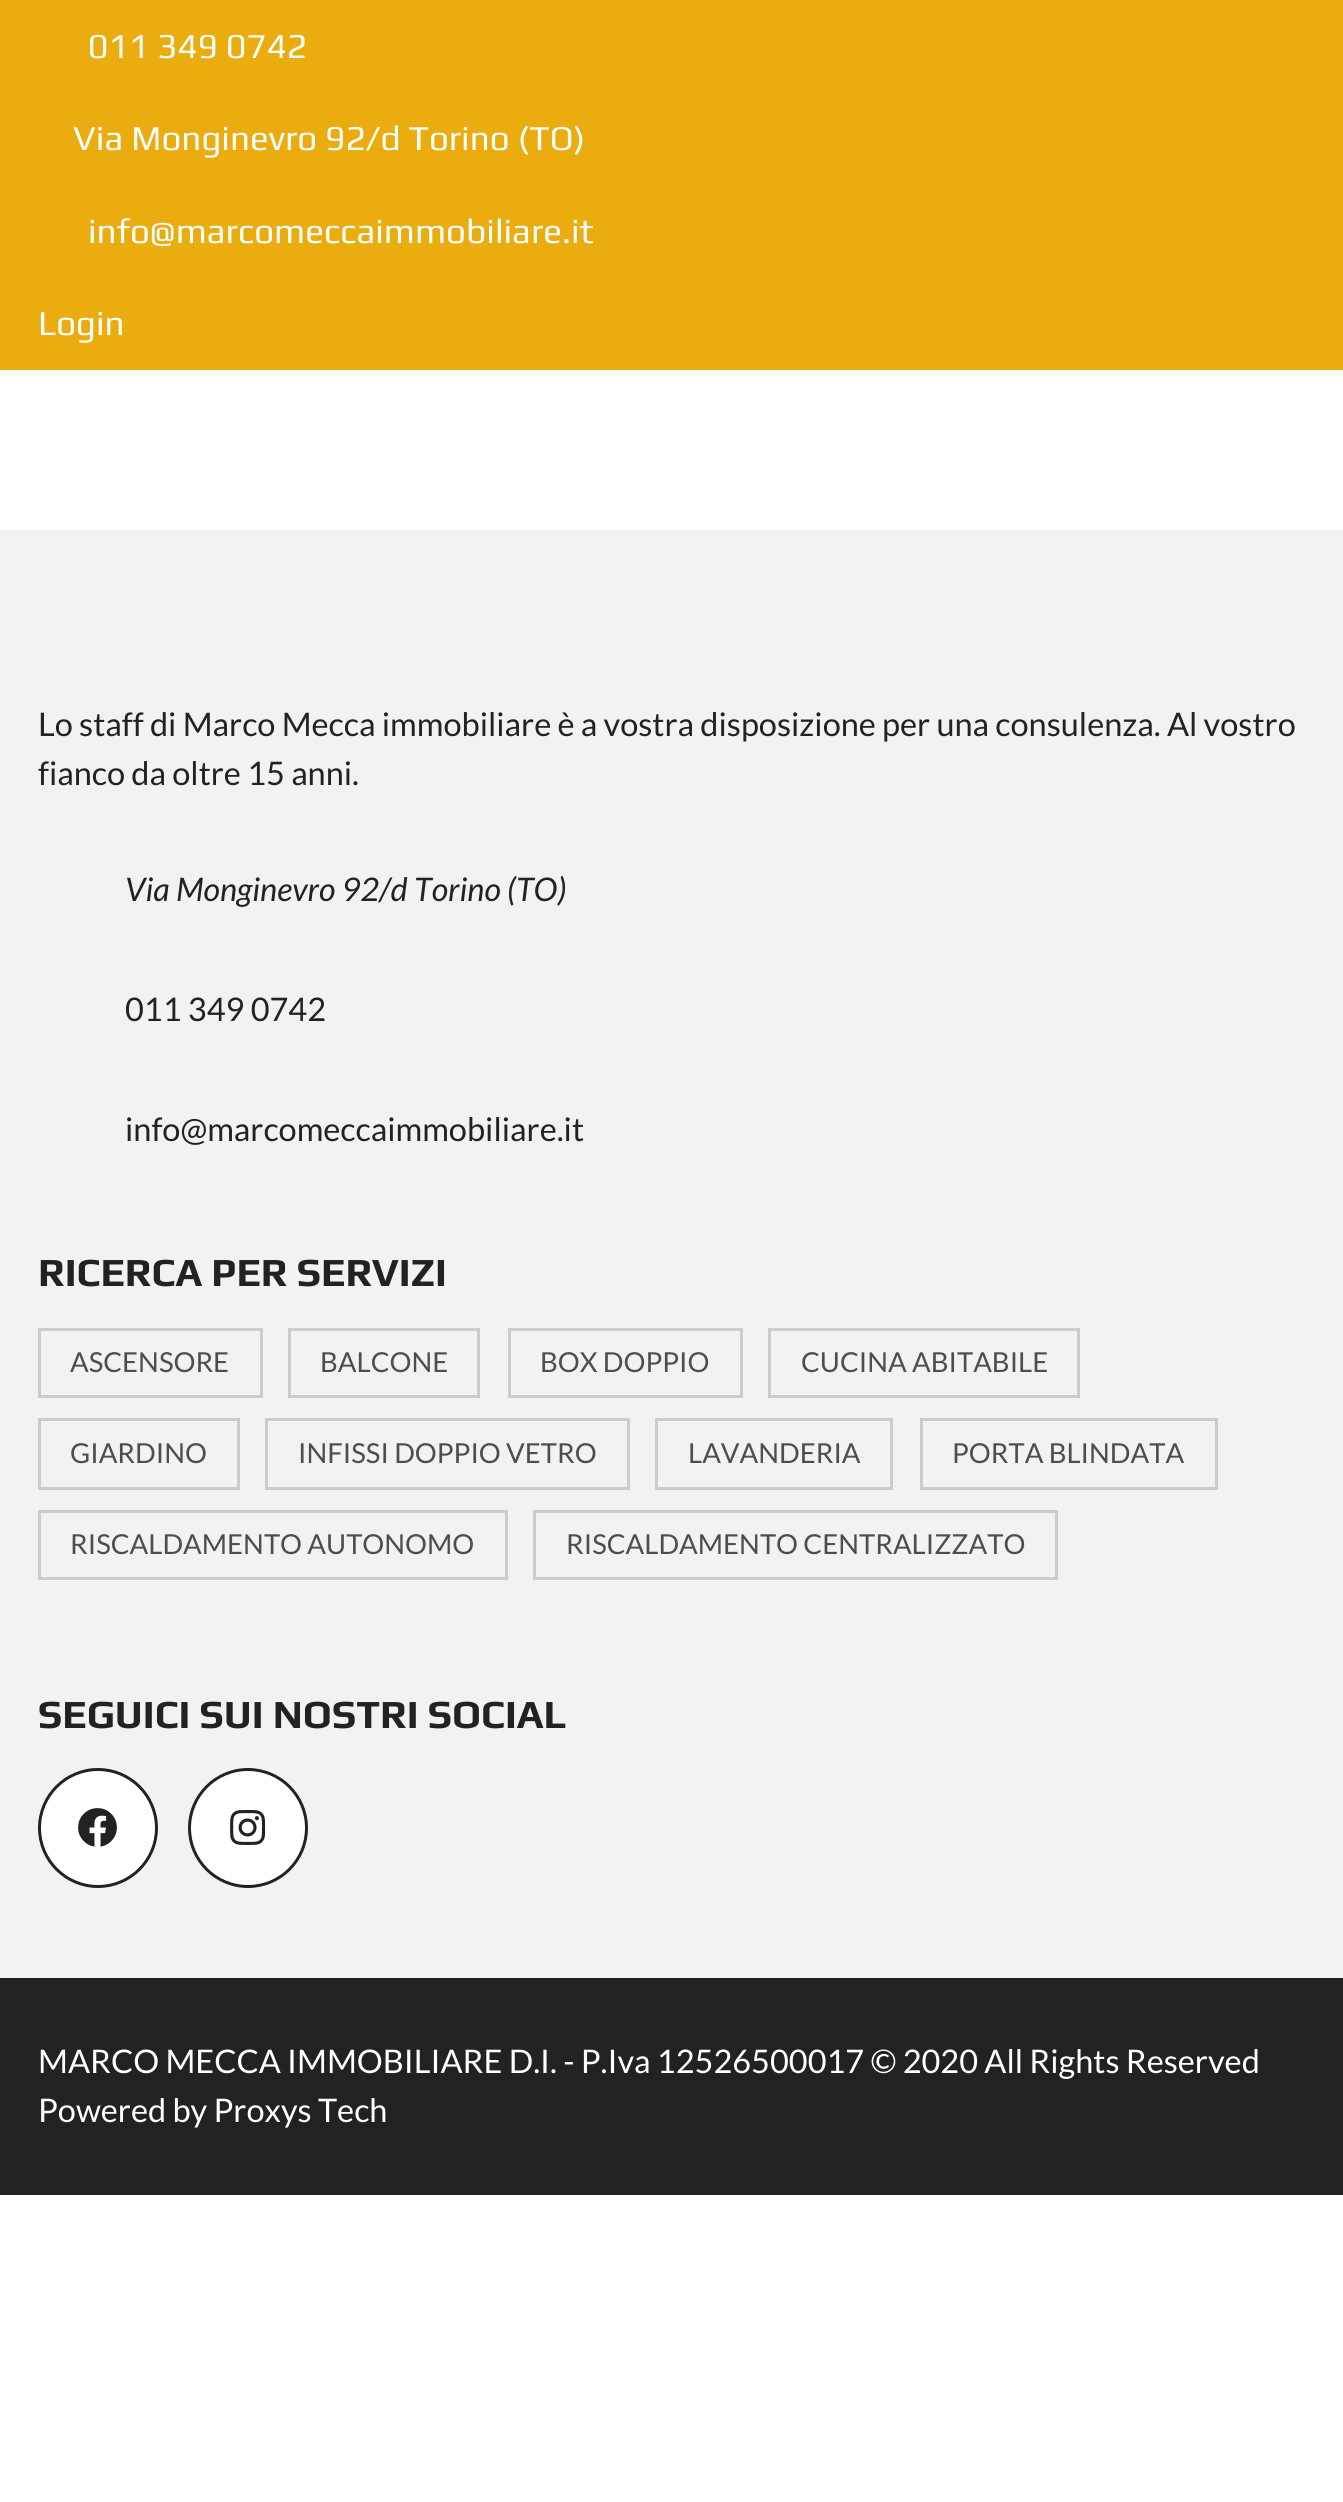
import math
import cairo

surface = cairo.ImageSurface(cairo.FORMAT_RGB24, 1343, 2502)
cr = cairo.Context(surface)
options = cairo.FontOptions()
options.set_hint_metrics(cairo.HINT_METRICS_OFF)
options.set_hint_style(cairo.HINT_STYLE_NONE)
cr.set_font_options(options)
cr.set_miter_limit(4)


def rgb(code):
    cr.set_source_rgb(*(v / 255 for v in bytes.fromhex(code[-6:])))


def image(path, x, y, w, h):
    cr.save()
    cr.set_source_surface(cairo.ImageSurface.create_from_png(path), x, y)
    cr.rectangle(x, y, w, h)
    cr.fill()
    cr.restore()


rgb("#ffffff")
cr.paint()
for x, y, w, h, color in [
    (0, 0, 1343, 370, "#eaac0e"),
    (0, 530, 1343, 3, "#f0f0f0"),
    (0, 533, 1343, 1445, "#f2f2f2"),
]:
    rgb(color)
    cr.rectangle(x, y, w, h)
    cr.fill()
cr.rectangle(39.5, 1329.5, 222, 67)
rgb("#cccccc")
cr.set_line_width(3)
cr.stroke()
cr.rectangle(289.5, 1329.5, 189, 67)
cr.stroke()
cr.rectangle(509.5, 1329.5, 232, 67)
cr.stroke()
cr.rectangle(769.5, 1329.5, 309, 67)
cr.stroke()
cr.rectangle(39.5, 1419.5, 199, 69)
cr.stroke()
cr.rectangle(266.5, 1419.5, 362, 69)
cr.stroke()
cr.rectangle(656.5, 1419.5, 235, 69)
cr.stroke()
cr.rectangle(921.5, 1419.5, 295, 69)
cr.stroke()
cr.rectangle(39.5, 1511.5, 467, 67)
cr.stroke()
cr.rectangle(534.5, 1511.5, 522, 67)
cr.stroke()
rgb("#ffffff")
cr.arc(98, 1828, 60, 0, 2 * math.pi)
cr.fill()
image("img/1.png", 78, 1808, 39, 39)
cr.arc(98, 1828, 58.5, 0, 2 * math.pi)
rgb("#222222")
cr.stroke()
rgb("#ffffff")
cr.arc(248, 1828, 60, 0, 2 * math.pi)
cr.fill()
image("img/2.png", 230, 1810, 36, 35)
cr.arc(248, 1828, 58.5, 0, 2 * math.pi)
rgb("#222222")
cr.stroke()
cr.rectangle(0, 1978, 1343, 217)
cr.fill()
cr.select_font_face("Play")
cr.set_font_size(35)
rgb("#ffffff")
for x, y, s in [
    (88, 58, "011 349 0742"),
    (73, 150, "Via Monginevro 92/d Torino (TO)"),
    (88, 243, "info@marcomeccaimmobiliare.it"),
    (38, 335, "Login"),
]:
    cr.move_to(x, y)
    cr.show_text(s)
cr.select_font_face("Lato")
cr.set_font_size(32.5)
rgb("#222222")
cr.move_to(38, 736)
cr.show_text("Lo staff di Marco Mecca immobiliare è a vostra disposizione per una consulenza. Al vostro")
cr.move_to(38, 785)
cr.show_text("fianco da oltre 15 anni.")
cr.select_font_face("Lato", cairo.FONT_SLANT_ITALIC)
cr.move_to(125, 901)
cr.show_text("Via Monginevro 92/d Torino (TO)")
cr.select_font_face("Lato")
cr.move_to(125, 1021)
cr.show_text("011 349 0742")
cr.move_to(125, 1141)
cr.show_text("info@marcomeccaimmobiliare.it")
cr.select_font_face("Play", cairo.FONT_SLANT_NORMAL, cairo.FONT_WEIGHT_BOLD)
cr.set_font_size(40)
cr.move_to(38, 1286)
cr.show_text("RICERCA PER SERVIZI")
cr.select_font_face("Lato")
cr.set_font_size(27.5)
rgb("#4d4d4d")
for x, y, s in [
    (70, 1372, "ASCENSORE"),
    (320, 1372, "BALCONE"),
    (540, 1372, "BOX DOPPIO"),
    (801, 1372, "CUCINA ABITABILE"),
    (70, 1463, "GIARDINO"),
    (298, 1463, "INFISSI DOPPIO VETRO"),
    (688, 1463, "LAVANDERIA"),
    (952, 1463, "PORTA BLINDATA"),
    (70, 1554, "RISCALDAMENTO AUTONOMO"),
    (566, 1554, "RISCALDAMENTO CENTRALIZZATO"),
]:
    cr.move_to(x, y)
    cr.show_text(s)
cr.select_font_face("Play", cairo.FONT_SLANT_NORMAL, cairo.FONT_WEIGHT_BOLD)
cr.set_font_size(40)
rgb("#222222")
cr.move_to(38, 1728)
cr.show_text("SEGUICI SUI NOSTRI SOCIAL")
cr.select_font_face("Lato")
cr.set_font_size(32.5)
rgb("#ffffff")
cr.move_to(38, 2073)
cr.show_text("MARCO MECCA IMMOBILIARE D.I. - P.Iva 12526500017 © 2020 All Rights Reserved")
cr.move_to(38, 2122)
cr.show_text("Powered by Proxys Tech")
surface.write_to_png("page.png")
